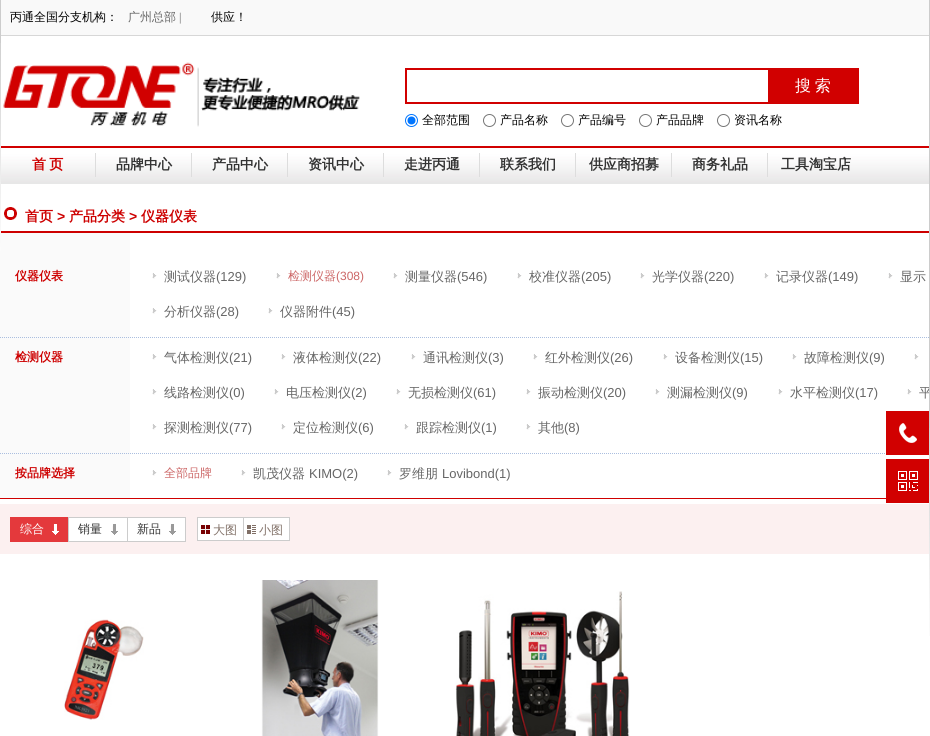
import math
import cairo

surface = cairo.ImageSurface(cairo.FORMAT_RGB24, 930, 736)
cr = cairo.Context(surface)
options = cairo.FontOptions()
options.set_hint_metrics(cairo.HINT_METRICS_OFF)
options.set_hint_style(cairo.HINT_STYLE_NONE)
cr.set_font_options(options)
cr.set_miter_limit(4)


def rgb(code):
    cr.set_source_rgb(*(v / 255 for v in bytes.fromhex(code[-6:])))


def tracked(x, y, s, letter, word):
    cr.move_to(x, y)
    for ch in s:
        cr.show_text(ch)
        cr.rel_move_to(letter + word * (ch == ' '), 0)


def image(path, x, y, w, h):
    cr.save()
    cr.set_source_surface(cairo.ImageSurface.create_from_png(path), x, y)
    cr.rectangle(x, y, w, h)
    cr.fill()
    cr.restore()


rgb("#ffffff")
cr.paint()
rgb("#f9f9f9")
cr.rectangle(1, 0, 928, 35)
cr.fill()
rgb("#d7d7d7")
cr.rectangle(0, 35, 930, 1)
cr.fill()
image("img/1.png", 3, 62, 357, 65)
cr.rectangle(406, 69, 452, 34)
rgb("#d10000")
cr.stroke()
cr.rectangle(768, 70, 89, 32)
cr.fill()
cr.arc(411.5, 120.5, 6, 0, 2 * math.pi)
rgb("#0075ff")
cr.set_line_width(1)
cr.stroke()
cr.arc(411.5, 120.5, 4, 0, 2 * math.pi)
cr.fill()
cr.arc(489.5, 120.5, 6, 0, 2 * math.pi)
rgb("#767676")
cr.stroke()
cr.arc(567.5, 120.5, 6, 0, 2 * math.pi)
cr.stroke()
cr.arc(645.5, 120.5, 6, 0, 2 * math.pi)
cr.stroke()
cr.arc(723.5, 120.5, 6, 0, 2 * math.pi)
cr.stroke()
image("img/2.png", 1, 148, 928, 36)
for x, y, w, h, color in [
    (0, 146, 930, 2, "#d10000"),
    (95, 153, 1, 24, "#dddddd"),
    (191, 153, 1, 24, "#dddddd"),
    (287, 153, 1, 24, "#dddddd"),
    (383, 153, 1, 24, "#dddddd"),
    (479, 153, 1, 24, "#dddddd"),
    (575, 153, 1, 24, "#dddddd"),
    (671, 153, 1, 24, "#dddddd"),
    (767, 153, 1, 24, "#dddddd"),
    (0, 0, 1, 43, "#cccccc"),
    (0, 231, 930, 2, "#cd0000"),
    (0, 233, 130, 265, "#fafafa"),
]:
    rgb(color)
    cr.rectangle(x, y, w, h)
    cr.fill()
image("img/3.png", 0, 43, 1, 208)
image("img/3.png", 929, 428, 1, 208)
image("img/4.png", 4, 207, 13, 13)
image("img/5.png", 152, 273, 5, 6)
image("img/5.png", 276, 273, 5, 6)
image("img/5.png", 393, 273, 5, 6)
image("img/5.png", 517, 273, 5, 6)
image("img/5.png", 640, 273, 5, 6)
image("img/5.png", 764, 273, 5, 6)
image("img/5.png", 888, 273, 5, 6)
image("img/5.png", 152, 308, 5, 6)
image("img/5.png", 268, 308, 5, 6)
cr.new_path()
cr.move_to(0, 337.5)
cr.line_to(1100, 337.5)
rgb("#aabedf")
cr.set_dash([1, 1])
cr.stroke()
image("img/5.png", 152, 354, 5, 6)
image("img/5.png", 281, 354, 5, 6)
image("img/5.png", 411, 354, 5, 6)
image("img/5.png", 533, 354, 5, 6)
image("img/5.png", 663, 354, 5, 6)
image("img/5.png", 792, 354, 5, 6)
image("img/5.png", 914, 354, 5, 6)
image("img/5.png", 152, 389, 5, 6)
image("img/5.png", 274, 389, 5, 6)
image("img/5.png", 396, 389, 5, 6)
image("img/5.png", 526, 389, 5, 6)
image("img/5.png", 655, 389, 5, 6)
image("img/5.png", 778, 389, 5, 6)
image("img/5.png", 907, 389, 5, 6)
image("img/5.png", 152, 424, 5, 6)
image("img/5.png", 281, 424, 5, 6)
image("img/5.png", 404, 424, 5, 6)
image("img/5.png", 526, 424, 5, 6)
cr.new_path()
cr.move_to(0, 453.5)
cr.line_to(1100, 453.5)
cr.stroke()
image("img/5.png", 152, 470, 5, 6)
image("img/5.png", 241, 470, 5, 6)
image("img/5.png", 387, 470, 5, 6)
for x, y, w, h, color in [
    (0, 498, 886, 1, "#cf0000"),
    (0, 504, 929, 50, "#fcf0f0"),
    (10, 517, 58, 25, "#e4393c"),
]:
    rgb(color)
    cr.rectangle(x, y, w, h)
    cr.fill()
image("img/6.png", 52, 524, 7, 11)
rgb("#ffffff")
cr.rectangle(68.5, 517.5, 59, 24)
cr.fill_preserve()
rgb("#cccccc")
cr.set_dash([])
cr.stroke()
image("img/7.png", 111, 524, 7, 11)
rgb("#ffffff")
cr.rectangle(127.5, 517.5, 58, 24)
cr.fill_preserve()
rgb("#cccccc")
cr.stroke()
image("img/7.png", 169, 524, 7, 11)
rgb("#ffffff")
cr.rectangle(197.5, 517.5, 46, 23)
cr.fill_preserve()
rgb("#cccccc")
cr.stroke()
image("img/8.png", 201, 525, 9, 9)
rgb("#ffffff")
cr.rectangle(243.5, 517.5, 46, 23)
cr.fill_preserve()
rgb("#cccccc")
cr.stroke()
image("img/9.png", 247, 525, 9, 9)
image("img/10.png", 64, 619, 80, 101)
image("img/11.png", 261, 580, 118, 156)
image("img/12.png", 455, 591, 175, 145)
rgb("#d10000")
cr.rectangle(886, 411, 43, 44)
cr.fill()
image("img/13.png", 899, 423, 18, 20)
cr.rectangle(886, 459, 43, 44)
cr.fill()
image("img/14.png", 898, 471, 20, 20)
cr.select_font_face("WenQuanYi Zen Hei Medium")
cr.set_font_size(12)
rgb("#000000")
cr.move_to(10, 21)
cr.show_text("丙通全国分支机构：")
rgb("#666666")
cr.move_to(128, 21)
cr.show_text("广州总部")
cr.select_font_face("Liberation Serif")
cr.move_to(179, 21)
cr.show_text("|")
cr.select_font_face("WenQuanYi Zen Hei Medium")
rgb("#000000")
cr.move_to(211, 21)
cr.show_text("供应！")
cr.set_font_size(16)
rgb("#ffffff")
tracked(795, 91, "搜 索", 0, -1)
cr.set_font_size(12)
rgb("#000000")
for x, y, s in [
    (422, 124, "全部范围"),
    (500, 124, "产品名称"),
    (578, 124, "产品编号"),
    (656, 124, "产品品牌"),
    (734, 124, "资讯名称"),
]:
    cr.move_to(x, y)
    cr.show_text(s)
cr.select_font_face("WenQuanYi Zen Hei", cairo.FONT_SLANT_NORMAL, cairo.FONT_WEIGHT_BOLD)
cr.set_font_size(14)
rgb("#cd0000")
tracked(32, 169, "首 页", 0, -1)
rgb("#333333")
for x, y, s in [
    (116, 169, "品牌中心"),
    (212, 169, "产品中心"),
    (308, 169, "资讯中心"),
    (404, 169, "走进丙通"),
    (500, 169, "联系我们"),
    (589, 169, "供应商招募"),
    (692, 169, "商务礼品"),
    (781, 169, "工具淘宝店"),
]:
    cr.move_to(x, y)
    cr.show_text(s)
rgb("#cd0000")
cr.move_to(25, 221)
cr.show_text("首页")
cr.select_font_face("Liberation Sans", cairo.FONT_SLANT_NORMAL, cairo.FONT_WEIGHT_BOLD)
cr.move_to(57, 221)
cr.show_text(">")
cr.select_font_face("WenQuanYi Zen Hei", cairo.FONT_SLANT_NORMAL, cairo.FONT_WEIGHT_BOLD)
cr.move_to(69, 221)
cr.show_text("产品分类")
cr.select_font_face("Liberation Sans", cairo.FONT_SLANT_NORMAL, cairo.FONT_WEIGHT_BOLD)
cr.move_to(129, 221)
cr.show_text(">")
cr.select_font_face("WenQuanYi Zen Hei", cairo.FONT_SLANT_NORMAL, cairo.FONT_WEIGHT_BOLD)
cr.move_to(141, 221)
cr.show_text("仪器仪表")
cr.set_font_size(12)
cr.move_to(15, 280)
cr.show_text("仪器仪表")
cr.select_font_face("WenQuanYi Zen Hei Medium")
cr.set_font_size(13)
rgb("#666666")
cr.move_to(164, 281)
cr.show_text("测试仪器")
cr.select_font_face("Liberation Sans")
cr.move_to(216, 281)
cr.show_text("(129)")
cr.select_font_face("WenQuanYi Zen Hei Medium")
cr.set_font_size(12)
rgb("#cc6666")
cr.move_to(288, 280)
cr.show_text("检测仪器")
cr.select_font_face("Liberation Sans")
cr.move_to(336, 280)
cr.show_text("(308)")
cr.select_font_face("WenQuanYi Zen Hei Medium")
cr.set_font_size(13)
rgb("#666666")
cr.move_to(405, 281)
cr.show_text("测量仪器")
cr.select_font_face("Liberation Sans")
cr.move_to(457, 281)
cr.show_text("(546)")
cr.select_font_face("WenQuanYi Zen Hei Medium")
cr.move_to(529, 281)
cr.show_text("校准仪器")
cr.select_font_face("Liberation Sans")
cr.move_to(581, 281)
cr.show_text("(205)")
cr.select_font_face("WenQuanYi Zen Hei Medium")
cr.move_to(652, 281)
cr.show_text("光学仪器")
cr.select_font_face("Liberation Sans")
cr.move_to(704, 281)
cr.show_text("(220)")
cr.select_font_face("WenQuanYi Zen Hei Medium")
cr.move_to(776, 281)
cr.show_text("记录仪器")
cr.select_font_face("Liberation Sans")
cr.move_to(828, 281)
cr.show_text("(149)")
cr.select_font_face("WenQuanYi Zen Hei Medium")
cr.move_to(900, 281)
cr.show_text("显示")
cr.move_to(164, 316)
cr.show_text("分析仪器")
cr.select_font_face("Liberation Sans")
cr.move_to(216, 316)
cr.show_text("(28)")
cr.select_font_face("WenQuanYi Zen Hei Medium")
cr.move_to(280, 316)
cr.show_text("仪器附件")
cr.select_font_face("Liberation Sans")
cr.move_to(332, 316)
cr.show_text("(45)")
cr.select_font_face("WenQuanYi Zen Hei", cairo.FONT_SLANT_NORMAL, cairo.FONT_WEIGHT_BOLD)
cr.set_font_size(12)
rgb("#cd0000")
cr.move_to(15, 361)
cr.show_text("检测仪器")
cr.select_font_face("WenQuanYi Zen Hei Medium")
cr.set_font_size(13)
rgb("#666666")
cr.move_to(164, 362)
cr.show_text("气体检测仪")
cr.select_font_face("Liberation Sans")
cr.move_to(229, 362)
cr.show_text("(21)")
cr.select_font_face("WenQuanYi Zen Hei Medium")
cr.move_to(293, 362)
cr.show_text("液体检测仪")
cr.select_font_face("Liberation Sans")
cr.move_to(358, 362)
cr.show_text("(22)")
cr.select_font_face("WenQuanYi Zen Hei Medium")
cr.move_to(423, 362)
cr.show_text("通讯检测仪")
cr.select_font_face("Liberation Sans")
cr.move_to(488, 362)
cr.show_text("(3)")
cr.select_font_face("WenQuanYi Zen Hei Medium")
cr.move_to(545, 362)
cr.show_text("红外检测仪")
cr.select_font_face("Liberation Sans")
cr.move_to(610, 362)
cr.show_text("(26)")
cr.select_font_face("WenQuanYi Zen Hei Medium")
cr.move_to(675, 362)
cr.show_text("设备检测仪")
cr.select_font_face("Liberation Sans")
cr.move_to(740, 362)
cr.show_text("(15)")
cr.select_font_face("WenQuanYi Zen Hei Medium")
cr.move_to(804, 362)
cr.show_text("故障检测仪")
cr.select_font_face("Liberation Sans")
cr.move_to(869, 362)
cr.show_text("(9)")
cr.select_font_face("WenQuanYi Zen Hei Medium")
cr.move_to(164, 397)
cr.show_text("线路检测仪")
cr.select_font_face("Liberation Sans")
cr.move_to(229, 397)
cr.show_text("(0)")
cr.select_font_face("WenQuanYi Zen Hei Medium")
cr.move_to(286, 397)
cr.show_text("电压检测仪")
cr.select_font_face("Liberation Sans")
cr.move_to(351, 397)
cr.show_text("(2)")
cr.select_font_face("WenQuanYi Zen Hei Medium")
cr.move_to(408, 397)
cr.show_text("无损检测仪")
cr.select_font_face("Liberation Sans")
cr.move_to(473, 397)
cr.show_text("(61)")
cr.select_font_face("WenQuanYi Zen Hei Medium")
cr.move_to(538, 397)
cr.show_text("振动检测仪")
cr.select_font_face("Liberation Sans")
cr.move_to(603, 397)
cr.show_text("(20)")
cr.select_font_face("WenQuanYi Zen Hei Medium")
cr.move_to(667, 397)
cr.show_text("测漏检测仪")
cr.select_font_face("Liberation Sans")
cr.move_to(732, 397)
cr.show_text("(9)")
cr.select_font_face("WenQuanYi Zen Hei Medium")
cr.move_to(790, 397)
cr.show_text("水平检测仪")
cr.select_font_face("Liberation Sans")
cr.move_to(855, 397)
cr.show_text("(17)")
cr.select_font_face("WenQuanYi Zen Hei Medium")
cr.move_to(919, 397)
cr.show_text("平")
rgb("#cccccc")
cr.rectangle(929, 0, 1, 428)
cr.fill()
rgb("#666666")
cr.move_to(164, 432)
cr.show_text("探测检测仪")
cr.select_font_face("Liberation Sans")
cr.move_to(229, 432)
cr.show_text("(77)")
cr.select_font_face("WenQuanYi Zen Hei Medium")
cr.move_to(293, 432)
cr.show_text("定位检测仪")
cr.select_font_face("Liberation Sans")
cr.move_to(358, 432)
cr.show_text("(6)")
cr.select_font_face("WenQuanYi Zen Hei Medium")
cr.move_to(416, 432)
cr.show_text("跟踪检测仪")
cr.select_font_face("Liberation Sans")
cr.move_to(481, 432)
cr.show_text("(1)")
cr.select_font_face("WenQuanYi Zen Hei Medium")
cr.move_to(538, 432)
cr.show_text("其他")
cr.select_font_face("Liberation Sans")
cr.move_to(564, 432)
cr.show_text("(8)")
cr.select_font_face("WenQuanYi Zen Hei", cairo.FONT_SLANT_NORMAL, cairo.FONT_WEIGHT_BOLD)
cr.set_font_size(12)
rgb("#cd0000")
cr.move_to(15, 477)
cr.show_text("按品牌选择")
cr.select_font_face("WenQuanYi Zen Hei Medium")
rgb("#cc6666")
cr.move_to(164, 477)
cr.show_text("全部品牌")
cr.set_font_size(13)
rgb("#666666")
cr.move_to(253, 478)
cr.show_text("凯茂仪器")
cr.select_font_face("Liberation Sans")
cr.move_to(309, 478)
cr.show_text("KIMO(2)")
cr.select_font_face("WenQuanYi Zen Hei Medium")
cr.move_to(399, 478)
cr.show_text("罗维朋")
cr.select_font_face("Liberation Sans")
cr.move_to(442, 478)
cr.show_text("Lovibond(1)")
cr.select_font_face("WenQuanYi Zen Hei Medium")
cr.set_font_size(12)
rgb("#ffffff")
cr.move_to(20, 533)
cr.show_text("综合")
rgb("#333333")
cr.move_to(78, 533)
cr.show_text("销量")
cr.move_to(137, 533)
cr.show_text("新品")
rgb("#806f66")
cr.move_to(213, 534)
cr.show_text("大图")
cr.move_to(259, 534)
cr.show_text("小图")
surface.write_to_png("page.png")
